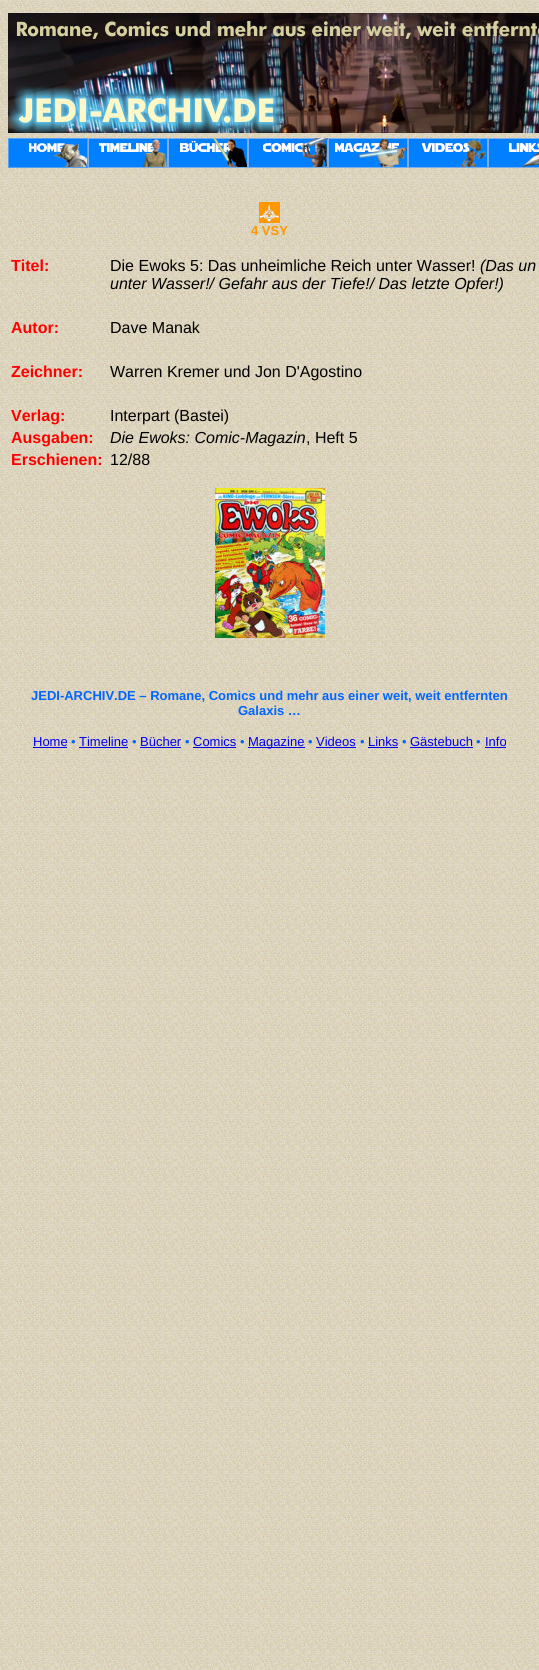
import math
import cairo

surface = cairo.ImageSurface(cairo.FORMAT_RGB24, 539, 1670)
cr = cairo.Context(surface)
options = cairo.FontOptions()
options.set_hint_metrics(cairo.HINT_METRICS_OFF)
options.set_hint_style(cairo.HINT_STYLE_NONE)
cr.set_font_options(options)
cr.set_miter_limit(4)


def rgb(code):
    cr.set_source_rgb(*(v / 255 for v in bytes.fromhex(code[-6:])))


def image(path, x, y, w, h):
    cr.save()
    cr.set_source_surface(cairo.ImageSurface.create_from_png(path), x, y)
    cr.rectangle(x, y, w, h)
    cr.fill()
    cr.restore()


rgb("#ffffff")
cr.paint()
image("img/1.png", 0, 0, 539, 1670)
image("img/2.png", 8, 13, 531, 120)
image("img/3.png", 8, 138, 80, 30)
image("img/4.png", 88, 138, 80, 30)
image("img/5.png", 168, 138, 80, 30)
image("img/6.png", 248, 138, 80, 30)
image("img/7.png", 328, 138, 80, 30)
image("img/8.png", 408, 138, 80, 30)
image("img/9.png", 488, 138, 51, 30)
image("img/10.png", 259, 202, 21, 21)
image("img/11.png", 215, 488, 110, 150)
for x, y, w, h, color in [
    (33, 747, 34, 1, "#0000ee"),
    (79, 747, 49, 1, "#0000ee"),
    (140, 747, 41, 1, "#0000ee"),
    (193, 747, 43, 1, "#0000ee"),
    (248, 747, 57, 1, "#0000ee"),
    (316, 747, 40, 1, "#0000ee"),
    (368, 747, 30, 1, "#0000ee"),
    (410, 747, 63, 1, "#0000ee"),
    (485, 747, 21, 1, "#0000ee"),
]:
    rgb(color)
    cr.rectangle(x, y, w, h)
    cr.fill()
cr.select_font_face("Liberation Sans", cairo.FONT_SLANT_NORMAL, cairo.FONT_WEIGHT_BOLD)
cr.set_font_size(13)
rgb("#ff9900")
cr.move_to(251, 235)
cr.show_text("4 VSY")
cr.set_font_size(16)
rgb("#ff0000")
cr.move_to(11, 271)
cr.show_text("Titel:")
cr.select_font_face("Liberation Sans")
rgb("#000000")
cr.move_to(110, 271)
cr.show_text("Die Ewoks 5: Das unheimliche Reich unter Wasser!")
cr.select_font_face("Liberation Sans", cairo.FONT_SLANT_ITALIC)
cr.move_to(480, 271)
cr.show_text("(Das un")
cr.move_to(110, 289)
cr.show_text("unter Wasser!/ Gefahr aus der Tiefe!/ Das letzte Opfer!)")
cr.select_font_face("Liberation Sans", cairo.FONT_SLANT_NORMAL, cairo.FONT_WEIGHT_BOLD)
rgb("#ff0000")
cr.move_to(11, 333)
cr.show_text("Autor:")
cr.select_font_face("Liberation Sans")
rgb("#000000")
cr.move_to(110, 333)
cr.show_text("Dave Manak")
cr.select_font_face("Liberation Sans", cairo.FONT_SLANT_NORMAL, cairo.FONT_WEIGHT_BOLD)
rgb("#ff0000")
cr.move_to(11, 377)
cr.show_text("Zeichner:")
cr.select_font_face("Liberation Sans")
rgb("#000000")
cr.move_to(110, 377)
cr.show_text("Warren Kremer und Jon D'Agostino")
cr.select_font_face("Liberation Sans", cairo.FONT_SLANT_NORMAL, cairo.FONT_WEIGHT_BOLD)
rgb("#ff0000")
cr.move_to(11, 421)
cr.show_text("Verlag:")
cr.select_font_face("Liberation Sans")
rgb("#000000")
cr.move_to(110, 421)
cr.show_text("Interpart (Bastei)")
cr.select_font_face("Liberation Sans", cairo.FONT_SLANT_NORMAL, cairo.FONT_WEIGHT_BOLD)
rgb("#ff0000")
cr.move_to(11, 443)
cr.show_text("Ausgaben:")
cr.select_font_face("Liberation Sans", cairo.FONT_SLANT_ITALIC)
rgb("#000000")
cr.move_to(110, 443)
cr.show_text("Die Ewoks: Comic-Magazin")
cr.select_font_face("Liberation Sans")
cr.move_to(306, 443)
cr.show_text(", Heft 5")
cr.select_font_face("Liberation Sans", cairo.FONT_SLANT_NORMAL, cairo.FONT_WEIGHT_BOLD)
rgb("#ff0000")
cr.move_to(11, 465)
cr.show_text("Erschienen:")
cr.select_font_face("Liberation Sans")
rgb("#000000")
cr.move_to(110, 465)
cr.show_text("12/88")
cr.select_font_face("Liberation Sans", cairo.FONT_SLANT_NORMAL, cairo.FONT_WEIGHT_BOLD)
cr.set_font_size(13)
rgb("#0066ff")
cr.move_to(31, 700)
cr.show_text("JEDI-ARCHIV.DE – Romane, Comics und mehr aus einer weit, weit entfernten")
cr.move_to(238, 715)
cr.show_text("Galaxis …")
cr.select_font_face("Liberation Sans")
rgb("#0000ee")
cr.move_to(33, 746)
cr.show_text("Home")
rgb("#0066ff")
cr.move_to(71, 746)
cr.show_text("•")
rgb("#0000ee")
cr.move_to(79, 746)
cr.show_text("Timeline")
rgb("#0066ff")
cr.move_to(132, 746)
cr.show_text("•")
rgb("#0000ee")
cr.move_to(140, 746)
cr.show_text("Bücher")
rgb("#0066ff")
cr.move_to(185, 746)
cr.show_text("•")
rgb("#0000ee")
cr.move_to(193, 746)
cr.show_text("Comics")
rgb("#0066ff")
cr.move_to(240, 746)
cr.show_text("•")
rgb("#0000ee")
cr.move_to(248, 746)
cr.show_text("Magazine")
rgb("#0066ff")
cr.move_to(308, 746)
cr.show_text("•")
rgb("#0000ee")
cr.move_to(316, 746)
cr.show_text("Videos")
rgb("#0066ff")
cr.move_to(360, 746)
cr.show_text("•")
rgb("#0000ee")
cr.move_to(368, 746)
cr.show_text("Links")
rgb("#0066ff")
cr.move_to(402, 746)
cr.show_text("•")
rgb("#0000ee")
cr.move_to(410, 746)
cr.show_text("Gästebuch")
rgb("#0066ff")
cr.move_to(476, 746)
cr.show_text("•")
rgb("#0000ee")
cr.move_to(485, 746)
cr.show_text("Info")
surface.write_to_png("page.png")
